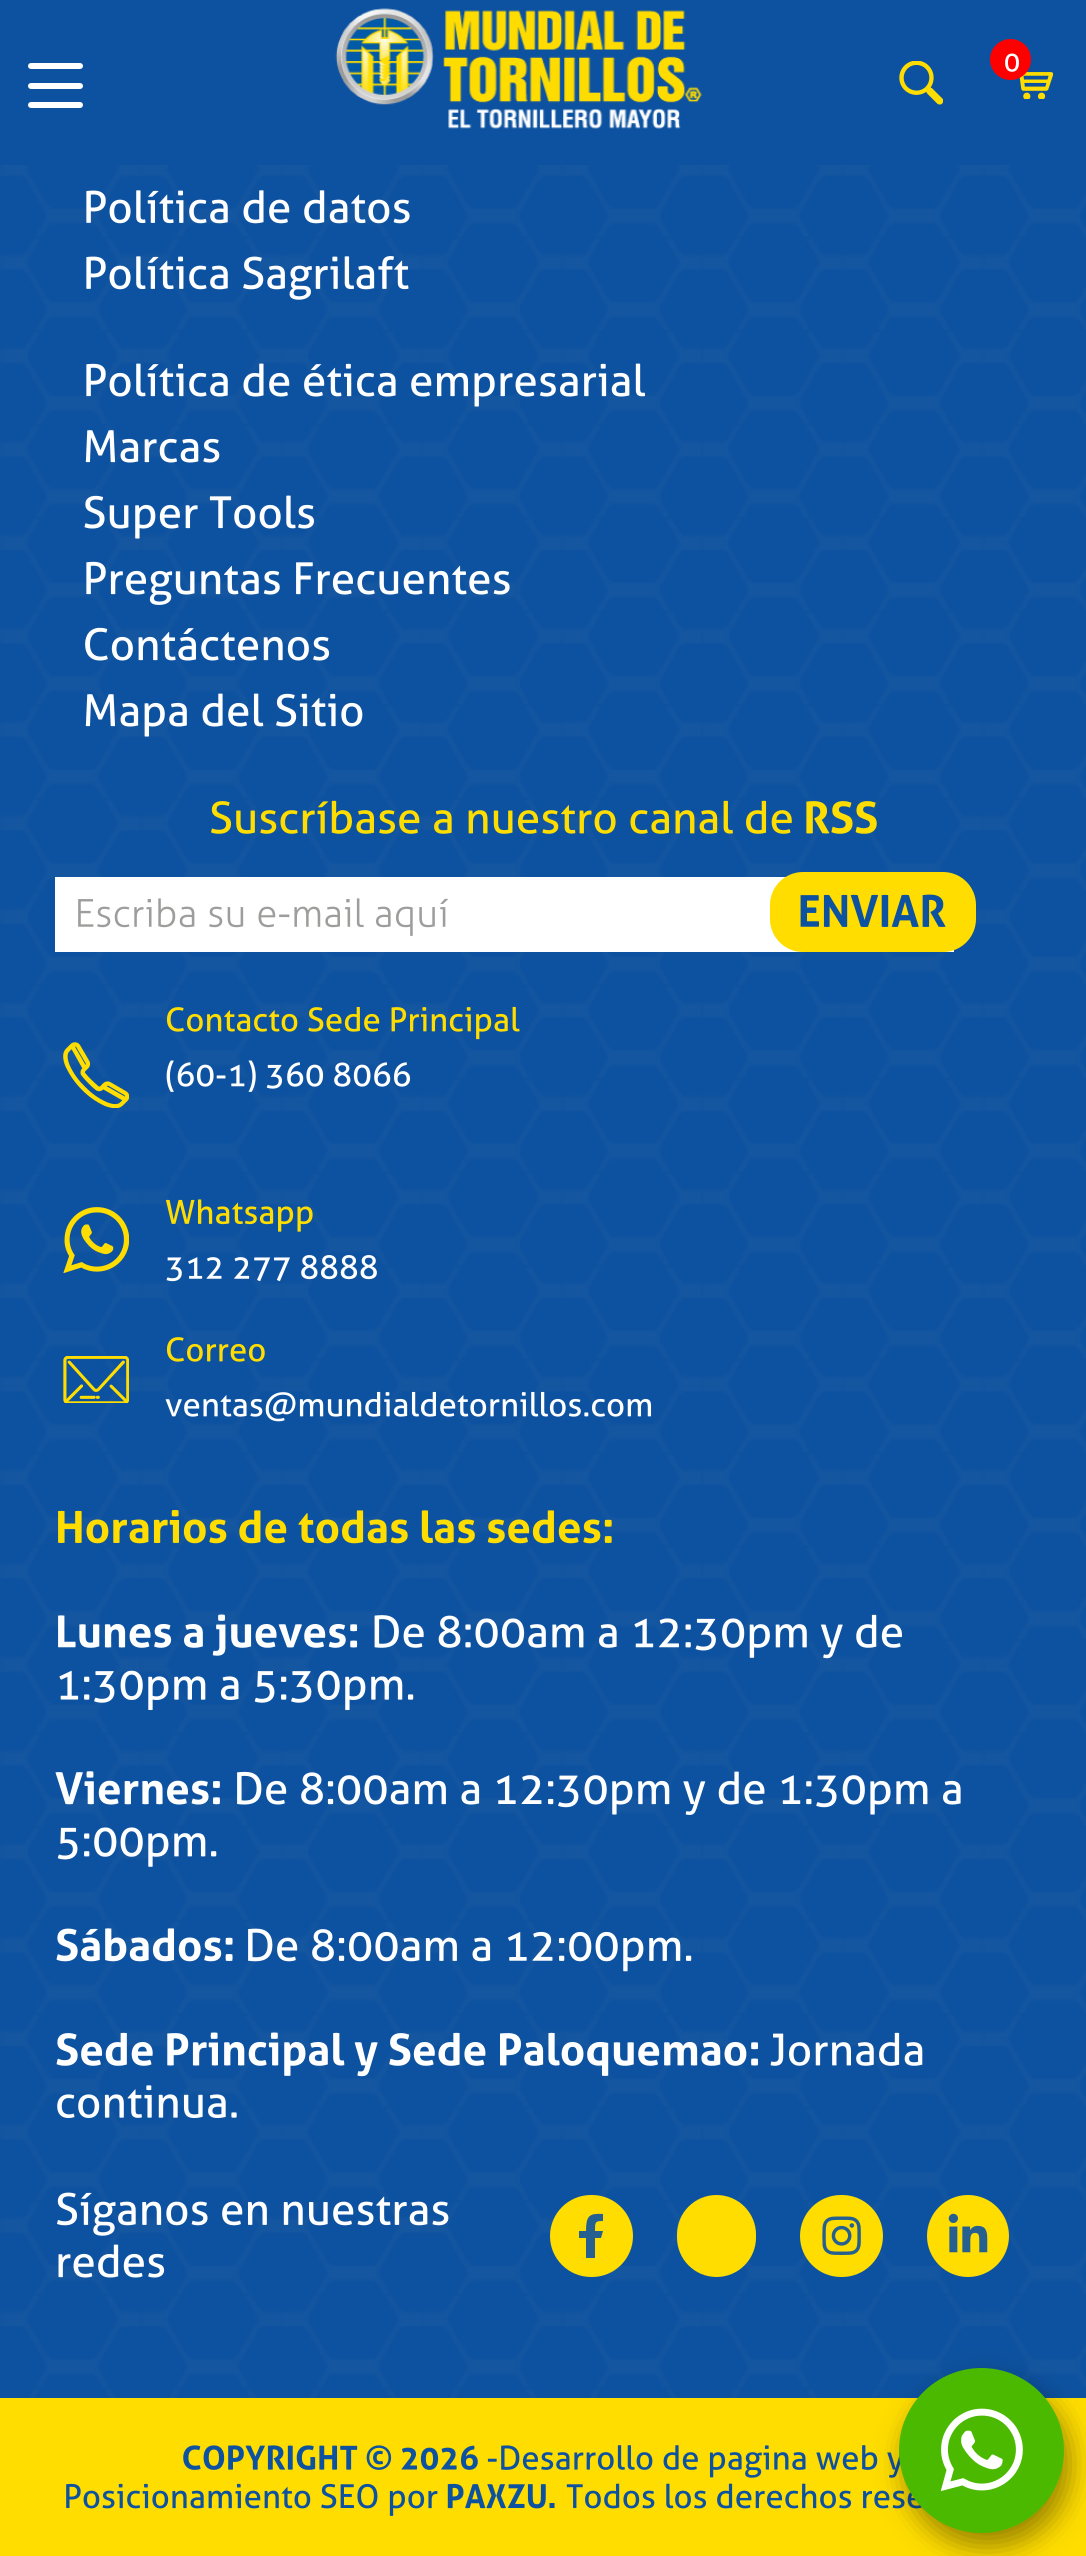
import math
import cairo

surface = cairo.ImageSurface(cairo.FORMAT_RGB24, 1086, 2556)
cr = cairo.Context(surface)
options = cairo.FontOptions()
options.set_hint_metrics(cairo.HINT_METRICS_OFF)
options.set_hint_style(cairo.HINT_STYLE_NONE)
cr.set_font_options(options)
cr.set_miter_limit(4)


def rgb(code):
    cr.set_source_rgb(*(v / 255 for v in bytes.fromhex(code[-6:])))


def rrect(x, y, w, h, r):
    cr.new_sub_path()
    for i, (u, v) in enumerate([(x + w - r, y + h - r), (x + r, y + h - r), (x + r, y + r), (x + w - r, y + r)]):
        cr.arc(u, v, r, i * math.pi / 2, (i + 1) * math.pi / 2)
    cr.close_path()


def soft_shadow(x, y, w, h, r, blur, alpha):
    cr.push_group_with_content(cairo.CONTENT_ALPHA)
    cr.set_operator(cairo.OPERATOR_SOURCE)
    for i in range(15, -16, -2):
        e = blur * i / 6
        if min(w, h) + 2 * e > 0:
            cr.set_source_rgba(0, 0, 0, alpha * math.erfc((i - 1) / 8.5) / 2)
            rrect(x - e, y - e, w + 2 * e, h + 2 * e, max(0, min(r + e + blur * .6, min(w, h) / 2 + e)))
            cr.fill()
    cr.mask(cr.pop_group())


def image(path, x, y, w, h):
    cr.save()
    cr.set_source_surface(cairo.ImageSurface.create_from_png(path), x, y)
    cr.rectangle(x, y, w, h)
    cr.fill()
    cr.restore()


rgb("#0d52a0")
cr.paint()
rgb("#ffffff")
rrect(28, 63, 55, 6, 3)
cr.fill()
rrect(28, 83, 55, 6, 3)
cr.fill()
rrect(28, 102, 55, 6, 3)
cr.fill()
image("img/1.png", 335, 8, 368, 121)
image("img/2.png", 899, 61, 44, 44)
image("img/3.png", 1019, 72, 34, 27)
rgb("#ff0000")
cr.arc(1010.5, 59.5, 20.5, 0, 2 * math.pi)
cr.fill()
image("img/4.png", 1005, 53, 14, 19)
image("img/6.png", 0, 165, 1086, 2233)
rgb("#ffdd00")
cr.rectangle(0, 2398, 1086, 158)
cr.fill()
image("img/45.png", 487, 2445, 414, 33)
image("img/48.png", 566, 2483, 356, 26)
rgb("#000000")
soft_shadow(905, 2382, 165, 165, 82.5, 14, 0.4)
rgb("#4bb900")
cr.arc(981.5, 2450.5, 82.5, 0, 2 * math.pi)
cr.fill()
image("img/5.png", 940, 2408, 83, 84)
image("img/7.png", 86, 190, 324, 34)
image("img/8.png", 86, 256, 323, 44)
image("img/9.png", 86, 363, 560, 44)
image("img/10.png", 85, 430, 135, 33)
image("img/11.png", 84, 495, 230, 44)
image("img/12.png", 86, 561, 424, 44)
image("img/13.png", 85, 627, 245, 34)
image("img/14.png", 85, 693, 278, 44)
image("img/15.png", 211, 800, 581, 34)
image("img/16.png", 806, 801, 71, 33)
rgb("#ffffff")
cr.rectangle(55, 877, 899, 75)
cr.fill()
rgb("#ffdd00")
rrect(770, 872, 206, 80, 33)
cr.fill()
image("img/17.png", 800, 894, 146, 33)
image("img/18.png", 78, 898, 370, 38)
image("img/19.png", 166, 1006, 354, 34)
image("img/20.png", 63, 1042, 66, 66)
image("img/21.png", 166, 1060, 245, 32)
image("img/22.png", 63, 1207, 66, 66)
image("img/23.png", 165, 1199, 148, 33)
image("img/24.png", 166, 1255, 211, 27)
image("img/25.png", 166, 1337, 99, 25)
image("img/26.png", 63, 1356, 66, 47)
image("img/27.png", 165, 1391, 487, 31)
image("img/28.png", 58, 1510, 554, 34)
image("img/29.png", 58, 1614, 300, 42)
image("img/30.png", 374, 1614, 528, 45)
image("img/31.png", 59, 1670, 355, 41)
image("img/32.png", 55, 1771, 165, 34)
image("img/33.png", 237, 1771, 724, 44)
image("img/34.png", 57, 1827, 160, 40)
image("img/35.png", 56, 1928, 177, 34)
image("img/36.png", 248, 1928, 444, 44)
image("img/37.png", 56, 2032, 703, 45)
image("img/38.png", 770, 2032, 153, 34)
image("img/39.png", 57, 2085, 180, 33)
image("img/40.png", 57, 2192, 392, 44)
image("img/41.png", 58, 2244, 107, 34)
rrect(550, 2195, 83, 82, 41)
cr.fill()
rgb("#256090")
cr.new_path()
cr.move_to(601, 2238)
cr.line_to(595, 2238)
cr.line_to(595, 2258)
cr.line_to(586, 2258)
cr.line_to(586, 2238)
cr.line_to(579, 2238)
cr.line_to(579, 2231)
cr.line_to(586, 2231)
cr.curve_to(586, 2216, 589, 2213, 603, 2214)
cr.line_to(603, 2221)
cr.curve_to(595, 2221, 595, 2222, 595, 2231)
cr.line_to(603, 2231)
cr.close_path()
cr.fill()
rgb("#ffdd00")
rrect(677, 2195, 79, 82, 39.5)
cr.fill()
rrect(800, 2195, 83, 82, 41)
cr.fill()
image("img/42.png", 822, 2216, 39, 39)
cr.arc(968, 2236, 41, 0, 2 * math.pi)
cr.fill()
image("img/43.png", 948, 2213, 40, 40)
image("img/44.png", 183, 2445, 295, 25)
image("img/46.png", 66, 2483, 372, 33)
image("img/47.png", 447, 2483, 99, 26)
rgb("#0d52a0")
cr.new_path()
cr.move_to(549.5, 2508)
cr.line_to(549.5, 2503)
cr.line_to(554.5, 2503)
cr.line_to(554.5, 2508)
cr.close_path()
cr.fill()
surface.write_to_png("page.png")
